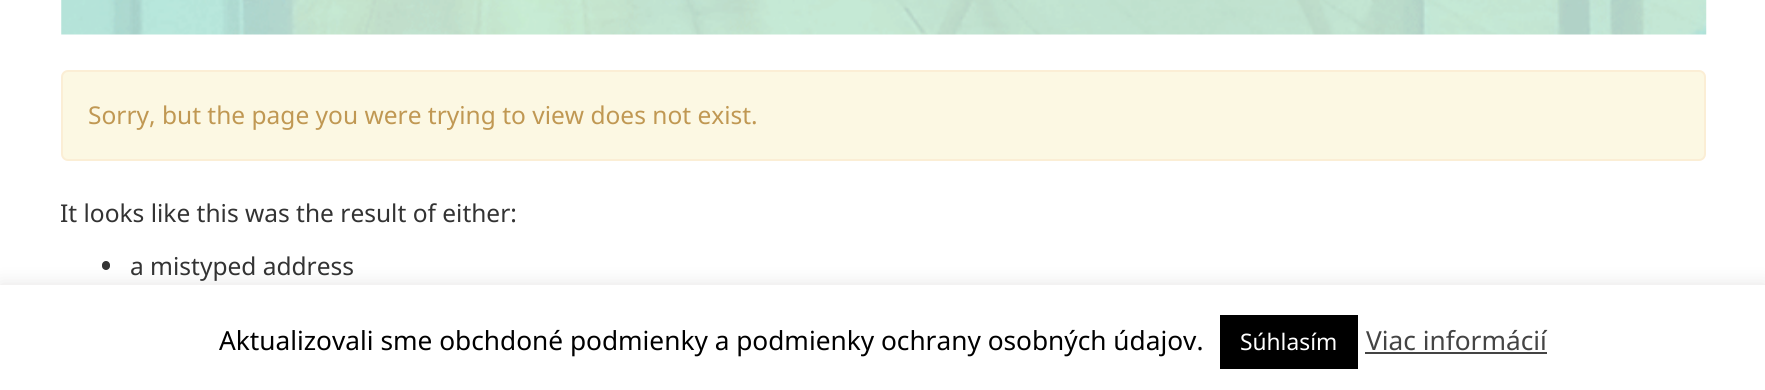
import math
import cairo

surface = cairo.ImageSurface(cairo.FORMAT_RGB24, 1765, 390)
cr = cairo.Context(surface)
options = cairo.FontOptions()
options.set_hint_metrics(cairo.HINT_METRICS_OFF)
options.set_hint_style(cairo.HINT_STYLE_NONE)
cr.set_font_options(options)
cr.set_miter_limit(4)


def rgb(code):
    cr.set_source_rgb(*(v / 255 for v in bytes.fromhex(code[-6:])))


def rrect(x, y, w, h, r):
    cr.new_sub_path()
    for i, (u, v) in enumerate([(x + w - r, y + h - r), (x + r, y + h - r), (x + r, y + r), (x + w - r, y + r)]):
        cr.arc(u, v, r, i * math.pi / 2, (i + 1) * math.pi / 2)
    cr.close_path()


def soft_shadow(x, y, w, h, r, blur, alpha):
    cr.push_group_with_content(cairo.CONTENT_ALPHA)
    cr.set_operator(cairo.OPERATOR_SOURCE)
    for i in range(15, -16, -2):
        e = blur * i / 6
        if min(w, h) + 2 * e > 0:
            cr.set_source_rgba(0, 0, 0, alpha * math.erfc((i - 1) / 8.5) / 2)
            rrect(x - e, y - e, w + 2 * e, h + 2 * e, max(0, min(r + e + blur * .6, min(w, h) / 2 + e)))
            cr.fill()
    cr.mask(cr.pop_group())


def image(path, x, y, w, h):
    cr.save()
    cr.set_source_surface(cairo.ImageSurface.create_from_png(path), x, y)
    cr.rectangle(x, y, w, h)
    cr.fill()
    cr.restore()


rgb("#ffffff")
cr.paint()
image("img/1.png", 61, 0, 1646, 35)
rgb("#fcf8e3")
rrect(62, 71, 1643, 89, 6)
cr.fill_preserve()
rgb("#fbeed5")
cr.stroke()
rgb("#333333")
rrect(102, 261, 8, 9, 4)
cr.fill()
rgb("#acabab")
soft_shadow(0, 284, 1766, 105, 0, 9, 0.3)
for x, y, w, h, color in [
    (0, 285, 1765, 105, "#ffffff"),
    (1220, 315, 138, 54, "#000000"),
    (1365, 352, 182, 2, "#444444"),
]:
    rgb(color)
    cr.rectangle(x, y, w, h)
    cr.fill()
cr.select_font_face("Noto Sans")
cr.set_font_size(24.5)
rgb("#c09853")
cr.move_to(88, 124)
cr.show_text("Sorry, but the page you were trying to view does not exist.")
rgb("#333333")
cr.move_to(60, 222)
cr.show_text("It looks like this was the result of either:")
cr.move_to(130, 275)
cr.show_text("a mistyped address")
cr.set_font_size(26.25)
rgb("#000000")
cr.move_to(219, 350)
cr.show_text("Aktualizovali sme obchdoné podmienky a podmienky ochrany osobných údajov.")
cr.set_font_size(22.75)
rgb("#ffffff")
cr.move_to(1240, 350)
cr.show_text("Súhlasím")
cr.set_font_size(26.25)
rgb("#444444")
cr.move_to(1366, 350)
cr.show_text("Viac informácií")
surface.write_to_png("page.png")
